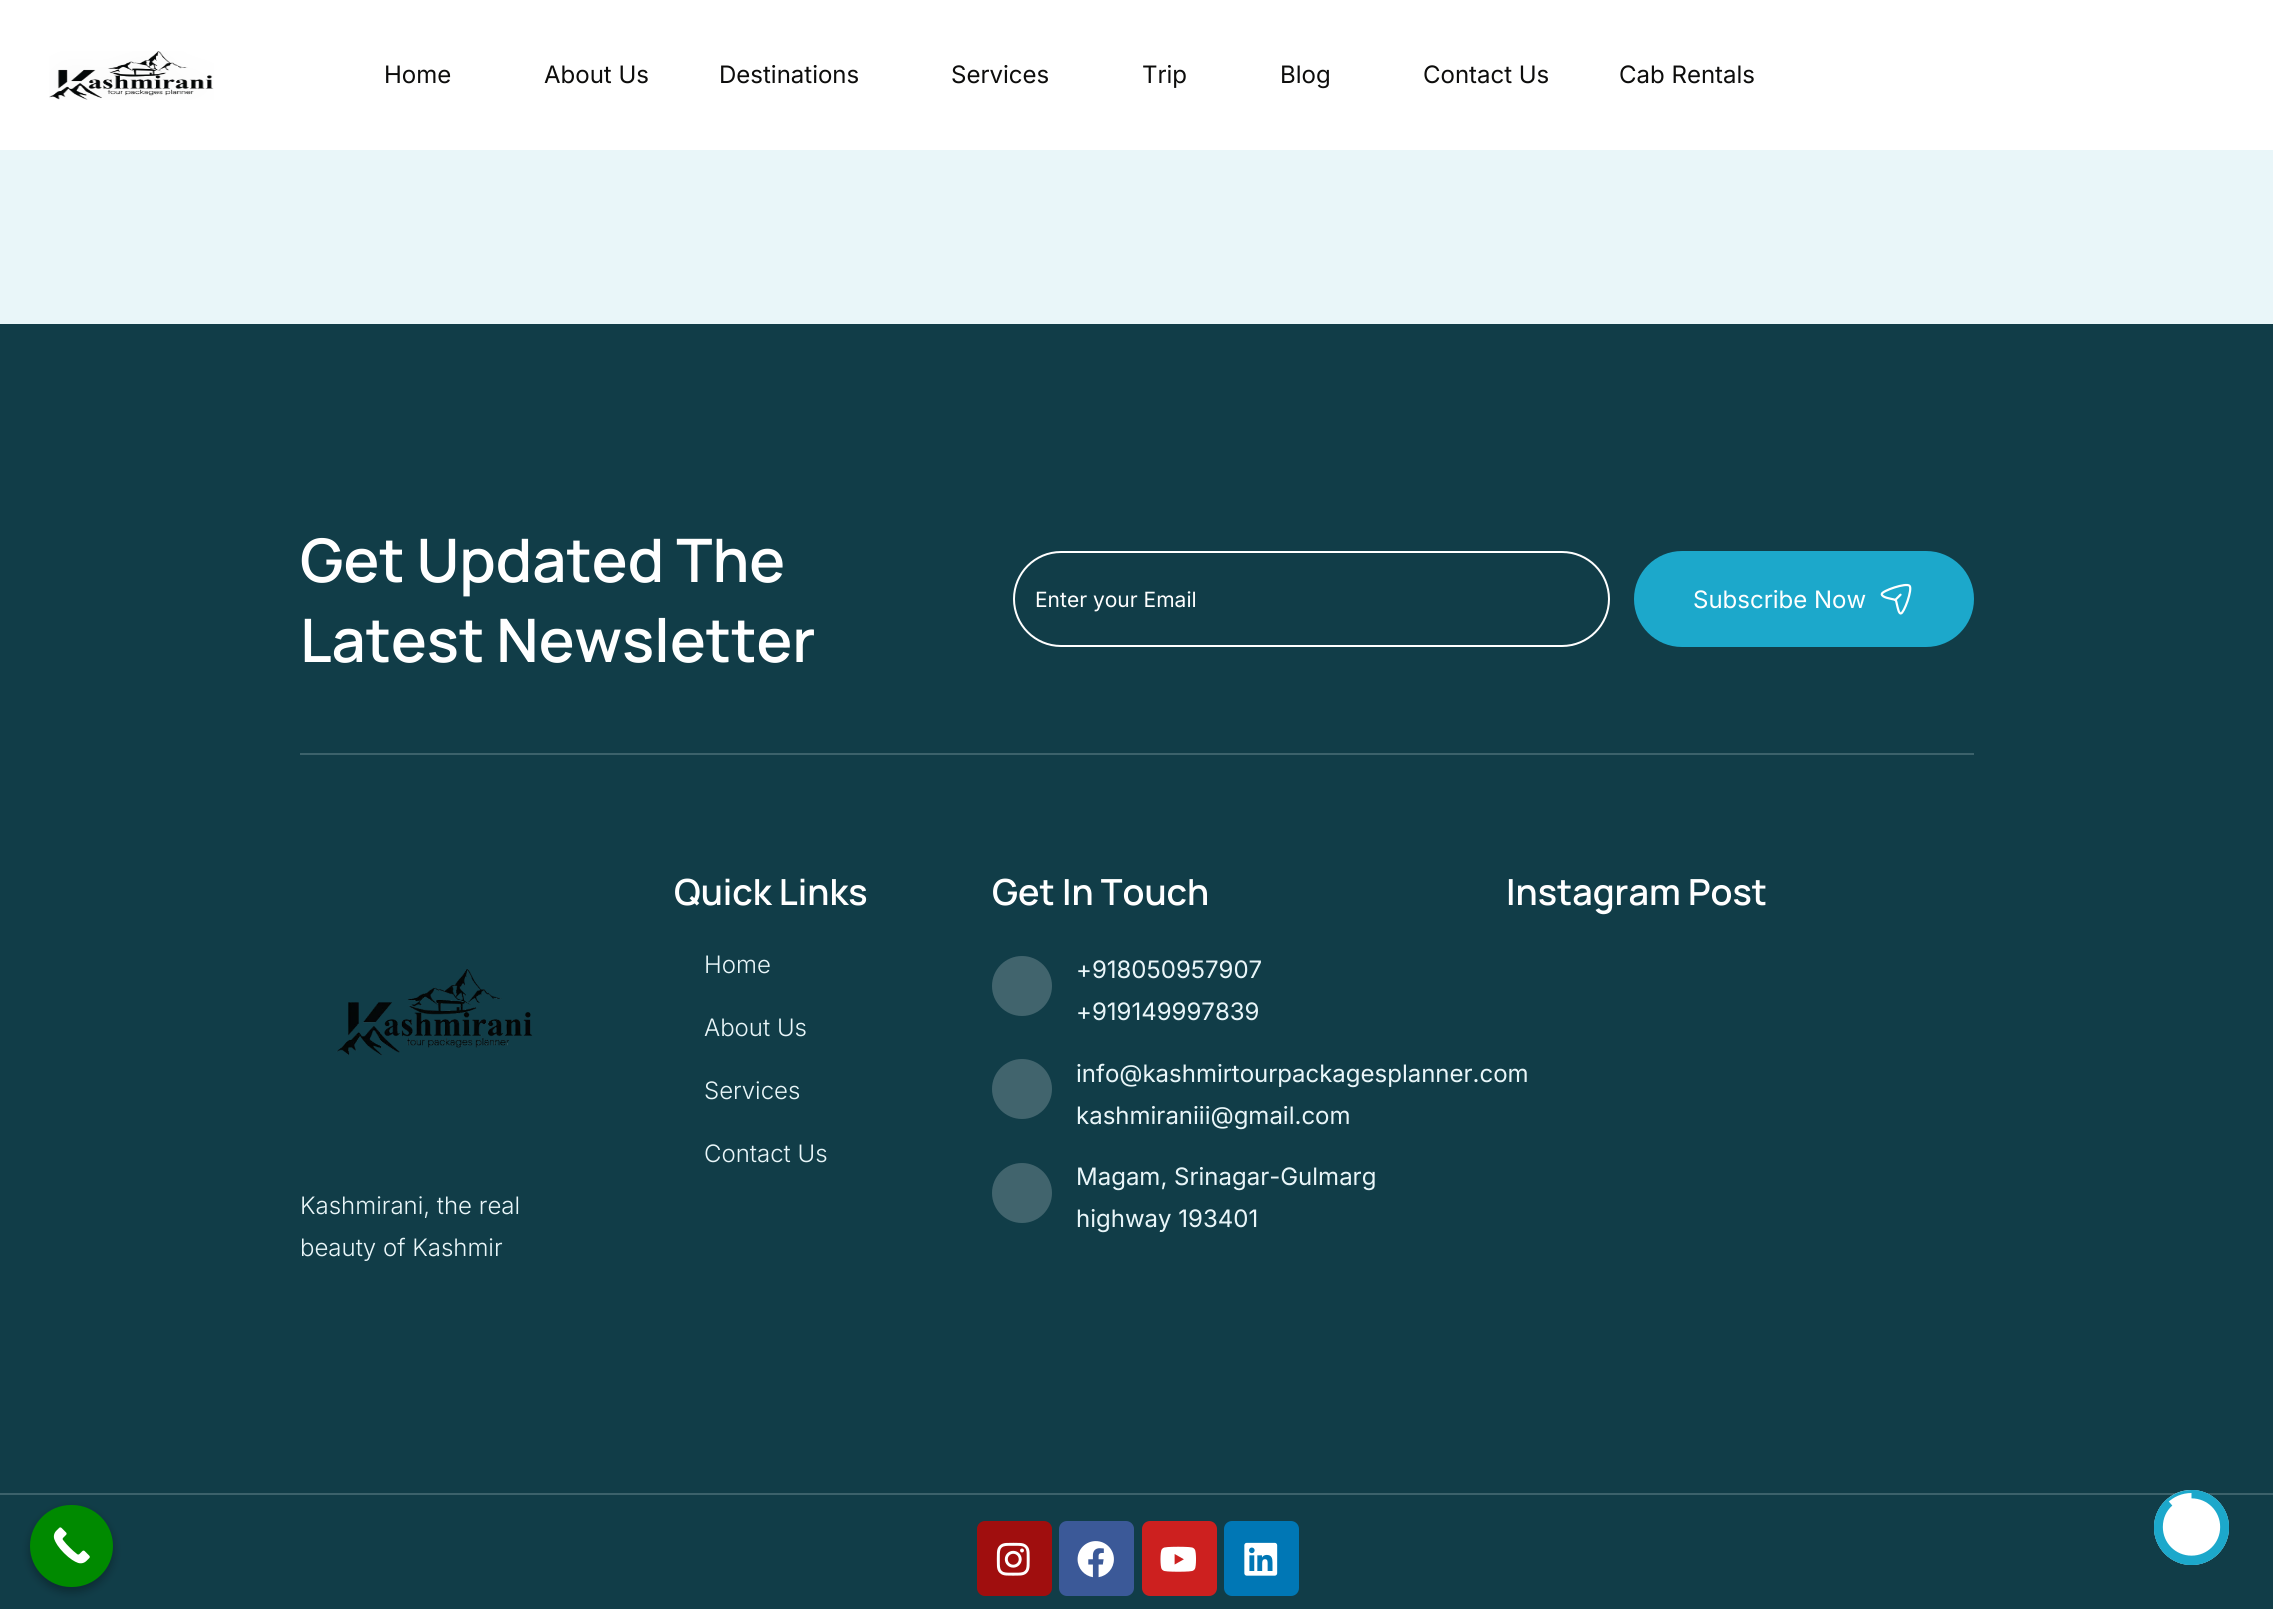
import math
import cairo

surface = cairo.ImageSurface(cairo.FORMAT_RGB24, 2273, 1609)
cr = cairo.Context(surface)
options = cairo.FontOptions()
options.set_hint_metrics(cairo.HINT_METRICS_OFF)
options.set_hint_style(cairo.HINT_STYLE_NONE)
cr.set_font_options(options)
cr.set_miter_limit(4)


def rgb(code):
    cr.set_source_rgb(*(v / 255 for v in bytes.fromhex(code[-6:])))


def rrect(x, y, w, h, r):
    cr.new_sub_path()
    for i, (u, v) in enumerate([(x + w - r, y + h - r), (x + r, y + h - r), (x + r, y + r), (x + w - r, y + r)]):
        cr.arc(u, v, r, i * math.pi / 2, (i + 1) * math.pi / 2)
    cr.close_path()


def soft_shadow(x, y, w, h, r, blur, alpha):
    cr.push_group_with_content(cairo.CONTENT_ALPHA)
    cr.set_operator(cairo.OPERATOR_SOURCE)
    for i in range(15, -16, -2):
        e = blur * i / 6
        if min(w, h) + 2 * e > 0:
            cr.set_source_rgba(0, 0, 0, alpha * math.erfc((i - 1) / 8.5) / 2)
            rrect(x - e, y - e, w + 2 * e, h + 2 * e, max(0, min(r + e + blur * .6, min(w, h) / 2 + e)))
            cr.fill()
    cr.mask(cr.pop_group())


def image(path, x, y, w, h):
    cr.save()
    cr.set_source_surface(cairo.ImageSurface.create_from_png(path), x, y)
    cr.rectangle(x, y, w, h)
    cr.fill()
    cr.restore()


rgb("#e9f6f9")
cr.paint()
rgb("#ffffff")
cr.rectangle(0, 0, 2273, 150)
cr.fill()
image("img/1.png", 49, 51, 165, 49)
rgb("#113d48")
cr.rectangle(0, 324, 2273, 1285)
cr.fill()
rgb("#3c626b")
cr.rectangle(300, 753, 1674, 2)
cr.fill()
rrect(1014, 552, 595, 94, 47)
rgb("#ffffff")
cr.stroke()
rgb("#1ca8cb")
rrect(1634, 551, 340, 96, 48)
cr.fill()
image("img/2.png", 1880, 583, 32, 32)
rgb("#41646d")
cr.arc(1022, 986, 30, 0, 2 * math.pi)
cr.fill()
cr.arc(1022, 1089, 30, 0, 2 * math.pi)
cr.fill()
cr.arc(1022, 1193, 30, 0, 2 * math.pi)
cr.fill()
image("img/3.png", 336, 969, 197, 87)
rgb("#3c626b")
cr.rectangle(0, 1493, 2273, 2)
cr.fill()
rgb("#a00e0e")
rrect(977, 1521, 75, 75, 8)
cr.fill()
image("img/4.png", 996, 1542, 34, 34)
rgb("#3b5998")
rrect(1059, 1521, 75, 75, 8)
cr.fill()
image("img/5.png", 1077, 1541, 37, 37)
rgb("#cd201f")
rrect(1142, 1521, 75, 75, 8)
cr.fill()
image("img/6.png", 1160, 1546, 36, 26)
rgb("#0077b5")
rrect(1224, 1521, 75, 75, 8)
cr.fill()
image("img/7.png", 1244, 1542, 34, 34)
rgb("#000000")
soft_shadow(30, 1509, 83, 83, 41.5, 4.5, 0.3)
rgb("#008a00")
rrect(30, 1505, 83, 82, 41)
cr.fill()
image("img/8.png", 53, 1527, 37, 37)
rgb("#ffffff")
cr.arc(2191.5, 1527.5, 37.5, 0, 2 * math.pi)
cr.fill()
cr.save()
rrect(2154, 1490, 75, 75, 37.5)
cr.clip()
cr.new_path()
cr.move_to(2191.5, 1491)
cr.curve_to(2211.5, 1491, 2227.5, 1507, 2227.5, 1527)
cr.curve_to(2227.5, 1547, 2211.5, 1563, 2191.5, 1563)
cr.curve_to(2171.5, 1563, 2155.5, 1547, 2155.5, 1527)
cr.curve_to(2155.5, 1516, 2160, 1506.5, 2167.5, 1500)
rgb("#1ca8cb")
cr.set_line_width(14.7)
cr.stroke()
cr.restore()
cr.arc(2191.5, 1527.5, 36, 0, 2 * math.pi)
rgb("#1ca8cb")
cr.set_line_width(3)
cr.stroke()
cr.select_font_face("Inter")
cr.set_font_size(24)
rgb("#0d0d0c")
for x, y, s in [
    (384, 83, "Home"),
    (544, 83, "About Us"),
    (719, 83, "Destinations"),
    (951, 83, "Services"),
    (1142, 83, "Trip"),
    (1280, 83, "Blog"),
    (1423, 83, "Contact Us"),
    (1619, 83, "Cab Rentals"),
]:
    cr.move_to(x, y)
    cr.show_text(s)
cr.select_font_face("Manrope SemiBold")
cr.set_font_size(60)
rgb("#ffffff")
cr.move_to(300, 582)
cr.show_text("Get Updated The")
cr.move_to(300, 662)
cr.show_text("Latest Newsletter")
cr.select_font_face("Inter")
cr.set_font_size(21)
cr.move_to(1035, 607)
cr.show_text("Enter your Email")
cr.set_font_size(24)
cr.move_to(1693, 608)
cr.show_text("Subscribe Now")
cr.select_font_face("Manrope SemiBold")
cr.set_font_size(36)
cr.move_to(674, 905)
cr.show_text("Quick Links")
cr.select_font_face("Inter Light")
cr.set_font_size(24)
rgb("#e9f6f9")
for x, y, s in [
    (704, 973, "Home"),
    (704, 1036, "About Us"),
    (704, 1099, "Services"),
    (704, 1162, "Contact Us"),
]:
    cr.move_to(x, y)
    cr.show_text(s)
cr.select_font_face("Manrope SemiBold")
cr.set_font_size(36)
rgb("#ffffff")
cr.move_to(992, 905)
cr.show_text("Get In Touch")
cr.select_font_face("Inter")
cr.set_font_size(24)
rgb("#e9f6f9")
for x, y, s in [
    (1076, 978, "+918050957907"),
    (1076, 1020, "+919149997839"),
    (1076, 1082, "info@kashmirtourpackagesplanner.com"),
    (1076, 1124, "kashmiraniii@gmail.com"),
    (1076, 1185, "Magam, Srinagar-Gulmarg"),
    (1076, 1227, "highway 193401"),
]:
    cr.move_to(x, y)
    cr.show_text(s)
cr.select_font_face("Manrope SemiBold")
cr.set_font_size(36)
rgb("#ffffff")
cr.move_to(1506, 905)
cr.show_text("Instagram Post")
cr.select_font_face("Inter Light")
cr.set_font_size(24)
rgb("#e9f6f9")
cr.move_to(300, 1214)
cr.show_text("Kashmirani, the real")
cr.move_to(300, 1256)
cr.show_text("beauty of Kashmir")
surface.write_to_png("page.png")
